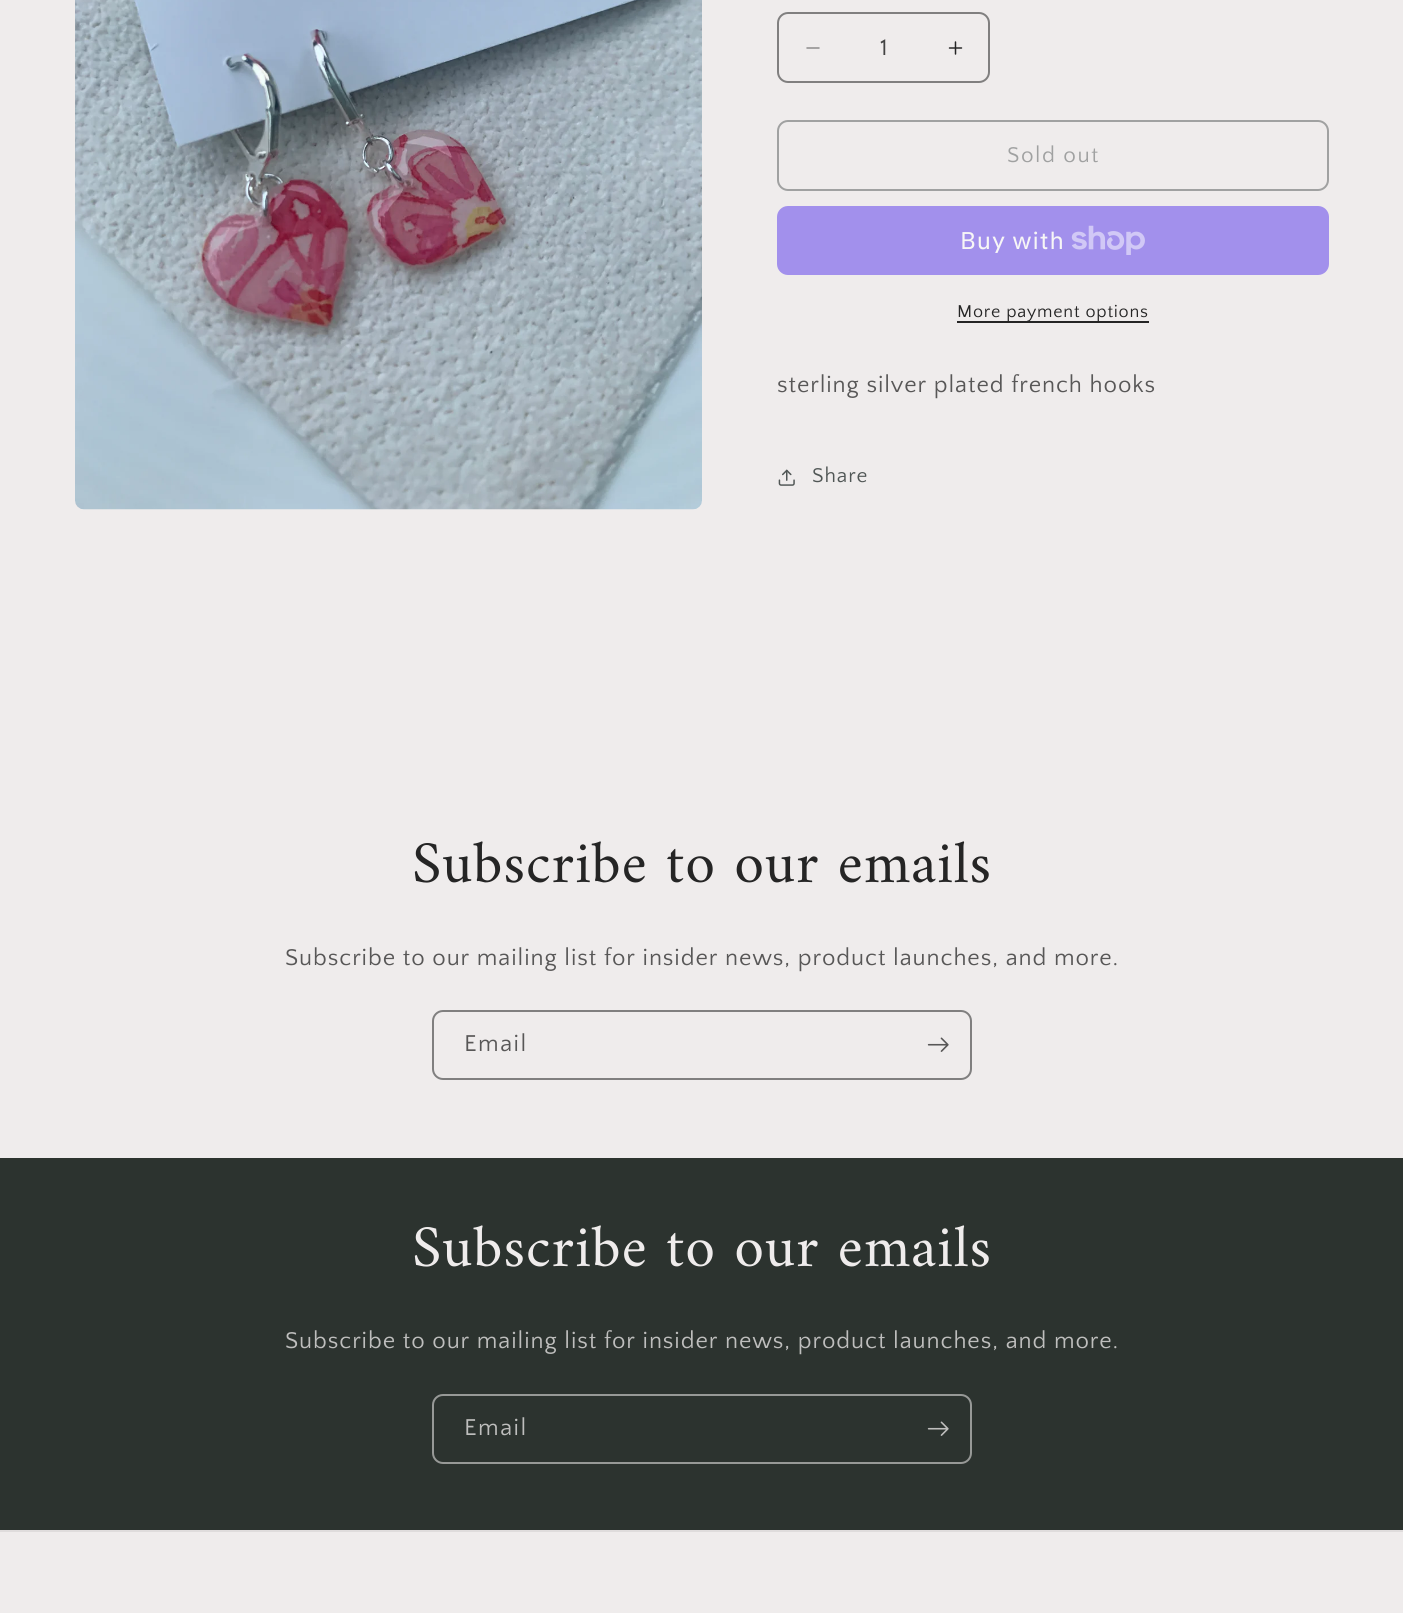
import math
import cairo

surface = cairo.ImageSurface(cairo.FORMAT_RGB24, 1403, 1613)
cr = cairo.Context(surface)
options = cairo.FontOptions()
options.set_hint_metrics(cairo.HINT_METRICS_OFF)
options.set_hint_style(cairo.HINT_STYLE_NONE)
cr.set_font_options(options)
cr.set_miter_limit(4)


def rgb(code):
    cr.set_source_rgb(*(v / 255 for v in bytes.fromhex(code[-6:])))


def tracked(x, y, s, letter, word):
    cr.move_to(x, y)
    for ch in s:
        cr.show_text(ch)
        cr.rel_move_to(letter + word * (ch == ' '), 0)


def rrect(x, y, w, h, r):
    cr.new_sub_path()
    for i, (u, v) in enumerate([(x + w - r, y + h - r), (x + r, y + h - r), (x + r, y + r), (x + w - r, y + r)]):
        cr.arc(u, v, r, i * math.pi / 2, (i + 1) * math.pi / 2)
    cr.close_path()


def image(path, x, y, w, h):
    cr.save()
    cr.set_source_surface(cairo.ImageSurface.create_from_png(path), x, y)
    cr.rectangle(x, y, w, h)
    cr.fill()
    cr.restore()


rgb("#efecec")
cr.paint()
image("img/1.png", 75, 0, 627, 510)
image("img/2.png", 806, 47, 14, 2)
image("img/3.png", 948, 41, 15, 14)
rrect(778, 13, 211, 69, 10)
rgb("#807f7f")
cr.stroke()
rrect(778, 121, 550, 69, 10)
rgb("#a0a1a1")
cr.stroke()
rgb("#a290ec")
rrect(777, 206, 552, 69, 11)
cr.fill()
image("img/4.png", 1071, 225, 74, 30)
rgb("#252525")
cr.rectangle(957, 321, 192, 2)
cr.fill()
image("img/5.png", 778, 469, 17, 17)
rrect(433, 1011, 538, 68, 10)
rgb("#807f7f")
cr.stroke()
image("img/6.png", 927, 1037, 22, 15)
rgb("#2c332f")
cr.rectangle(0, 1158, 1403, 372)
cr.fill()
rrect(433, 1395, 538, 68, 10)
rgb("#979997")
cr.stroke()
image("img/7.png", 927, 1421, 22, 15)
rgb("#dfdcdc")
cr.rectangle(0, 1530, 1403, 2)
cr.fill()
cr.select_font_face("Quattrocento Sans")
cr.set_font_size(24)
rgb("#434343")
cr.move_to(880, 55)
cr.show_text("1")
cr.set_font_size(22.5)
rgb("#a0a1a1")
tracked(1007, 162, "Sold out", 1.5, 0)
cr.select_font_face("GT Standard")
cr.set_font_size(24)
rgb("#f7f6f6")
tracked(960, 249, "Buy with", 0.9, 0)
cr.select_font_face("Quattrocento Sans")
cr.set_font_size(18)
rgb("#252525")
tracked(957, 317, "More payment options", 0.75, 0)
cr.set_font_size(24)
rgb("#585757")
tracked(777, 392, "sterling silver plated french hooks", 0.9, 0)
cr.set_font_size(21)
rgb("#505655")
tracked(812, 482, "Share", 0.9, 0)
cr.select_font_face("Amiri")
cr.set_font_size(60)
rgb("#252525")
tracked(412, 882, "Subscribe to our emails", 0.9, 0)
cr.select_font_face("Quattrocento Sans")
cr.set_font_size(24)
rgb("#585757")
tracked(285, 965, "Subscribe to our mailing list for insider news, product launches, and more.", 0.9, 0)
tracked(464, 1051, "Email", 1.5, 0)
cr.select_font_face("Amiri")
cr.set_font_size(60)
rgb("#efecec")
tracked(412, 1266, "Subscribe to our emails", 0.9, 0)
cr.select_font_face("Quattrocento Sans")
cr.set_font_size(24)
rgb("#bebebd")
tracked(285, 1348, "Subscribe to our mailing list for insider news, product launches, and more.", 0.9, 0)
tracked(464, 1435, "Email", 1.5, 0)
surface.write_to_png("page.png")
